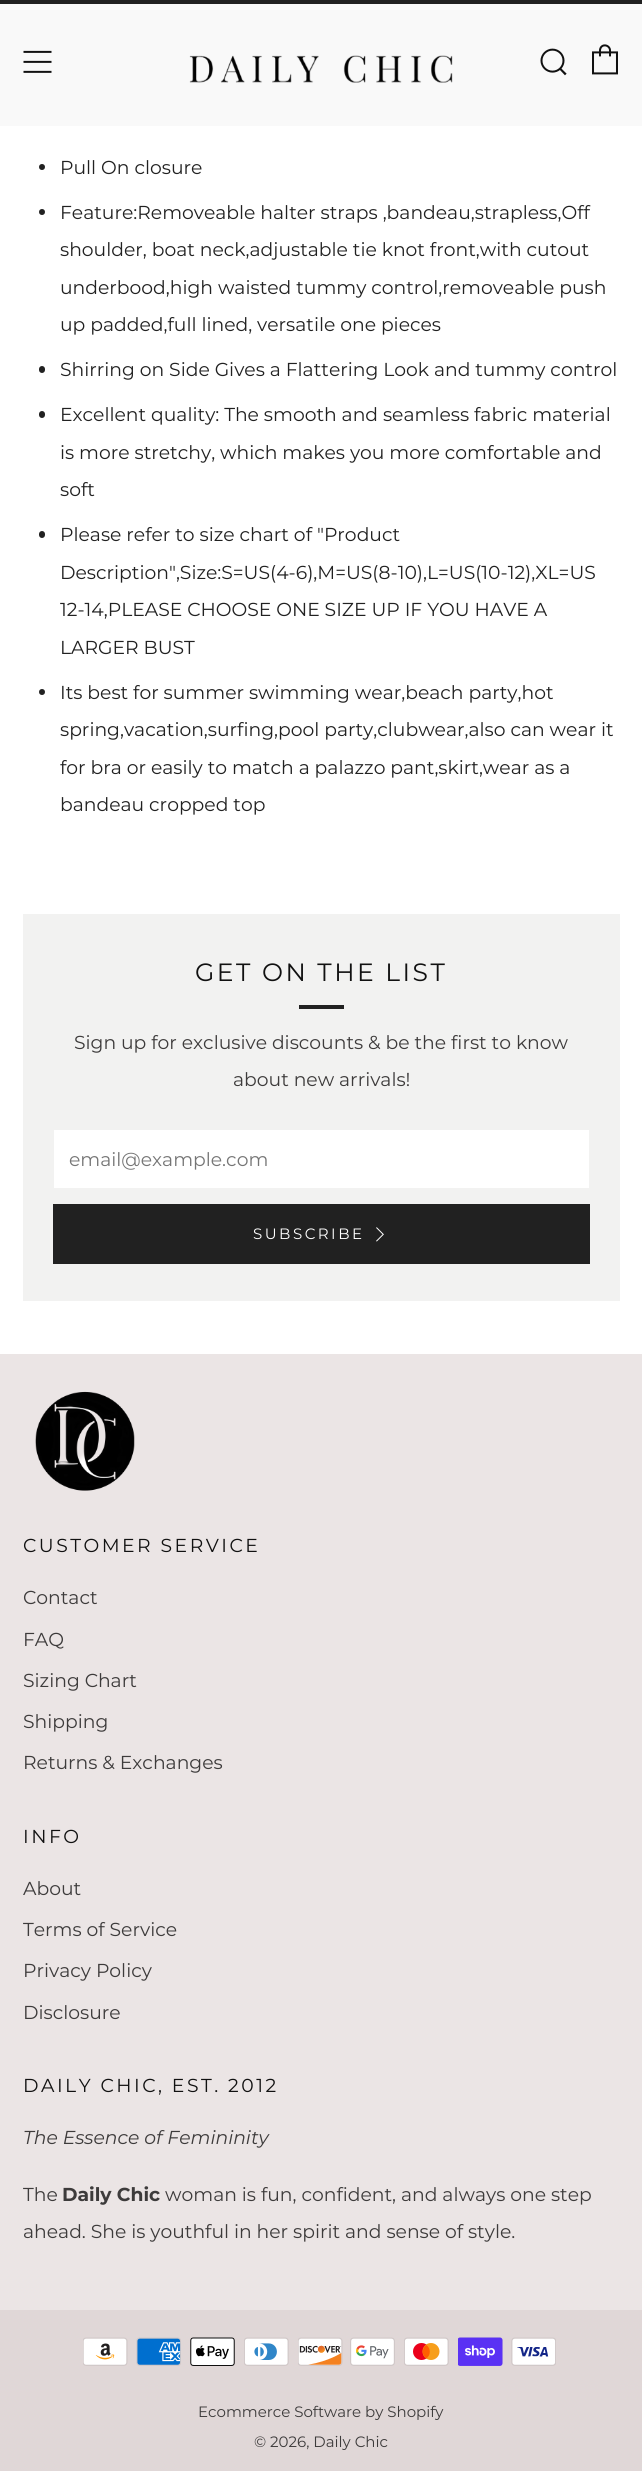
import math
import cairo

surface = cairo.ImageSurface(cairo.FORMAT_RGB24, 642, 2471)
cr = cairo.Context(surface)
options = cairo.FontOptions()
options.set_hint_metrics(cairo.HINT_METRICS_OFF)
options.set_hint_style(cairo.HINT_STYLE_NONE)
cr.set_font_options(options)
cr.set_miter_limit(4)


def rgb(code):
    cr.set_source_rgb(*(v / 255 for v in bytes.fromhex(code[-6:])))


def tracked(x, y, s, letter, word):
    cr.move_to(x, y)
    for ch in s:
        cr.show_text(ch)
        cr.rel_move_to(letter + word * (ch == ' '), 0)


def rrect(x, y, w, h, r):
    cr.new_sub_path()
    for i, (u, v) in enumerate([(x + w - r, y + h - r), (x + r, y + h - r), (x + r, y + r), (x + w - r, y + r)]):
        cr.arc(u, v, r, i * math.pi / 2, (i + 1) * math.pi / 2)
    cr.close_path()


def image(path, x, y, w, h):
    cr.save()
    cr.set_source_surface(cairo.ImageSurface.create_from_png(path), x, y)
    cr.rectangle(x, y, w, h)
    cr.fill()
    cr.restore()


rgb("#ffffff")
cr.paint()
rgb("#212121")
cr.rectangle(0, 0, 642, 4)
cr.fill()
rgb("#f9f9f9")
cr.rectangle(0, 4, 642, 122)
cr.fill()
image("img/1.png", 23, 50, 29, 23)
image("img/2.png", 189, 55, 264, 28)
image("img/3.png", 540, 48, 27, 28)
image("img/4.png", 592, 44, 26, 31)
rgb("#212121")
cr.arc(42, 167, 3, 0, 2 * math.pi)
cr.fill()
cr.arc(42, 212, 3, 0, 2 * math.pi)
cr.fill()
rrect(39, 366, 6, 7, 3)
cr.fill()
rrect(39, 411, 6, 7, 3)
cr.fill()
rrect(39, 531, 6, 7, 3)
cr.fill()
cr.arc(42, 692, 3, 0, 2 * math.pi)
cr.fill()
for x, y, w, h, color in [
    (23, 914, 597, 387, "#f2f2f1"),
    (299, 1005, 45, 4, "#212121"),
    (54, 1130, 535, 58, "#ffffff"),
    (53, 1204, 537, 60, "#212121"),
]:
    rgb(color)
    cr.rectangle(x, y, w, h)
    cr.fill()
image("img/5.png", 376, 1227, 8, 15)
rgb("#ebe5e5")
cr.rectangle(0, 1354, 642, 956)
cr.fill()
image("img/6.png", 35, 1391, 100, 100)
rgb("#e0d7d7")
cr.rectangle(0, 2310, 642, 161)
cr.fill()
image("img/7.png", 83, 2337, 45, 29)
image("img/8.png", 136, 2337, 45, 29)
image("img/9.png", 190, 2337, 45, 29)
image("img/10.png", 244, 2337, 45, 29)
image("img/11.png", 298, 2337, 45, 29)
image("img/12.png", 350, 2337, 45, 29)
image("img/13.png", 404, 2337, 45, 29)
image("img/14.png", 458, 2337, 45, 29)
image("img/15.png", 511, 2337, 45, 29)
cr.select_font_face("Montserrat")
cr.set_font_size(18.75)
rgb("#212121")
for x, y, s in [
    (60, 174, "Pull On closure"),
    (60, 219, "Feature:Removeable halter straps ,bandeau,strapless,Off"),
    (60, 256, "shoulder, boat neck,adjustable tie knot front,with cutout"),
    (60, 294, "underbood,high waisted tummy control,removeable push"),
    (60, 331, "up padded,full lined, versatile one pieces"),
    (60, 376, "Shirring on Side Gives a Flattering Look and tummy control"),
    (60, 421, "Excellent quality: The smooth and seamless fabric material"),
    (60, 459, "is more stretchy, which makes you more comfortable and"),
    (60, 496, "soft"),
    (60, 541, "Please refer to size chart of \"Product"),
    (60, 579, "Description\",Size:S=US(4-6),M=US(8-10),L=US(10-12),XL=US"),
    (60, 616, "12-14,PLEASE CHOOSE ONE SIZE UP IF YOU HAVE A"),
    (60, 654, "LARGER BUST"),
    (60, 699, "Its best for summer swimming wear,beach party,hot"),
    (60, 736, "spring,vacation,surfing,pool party,clubwear,also can wear it"),
    (60, 774, "for bra or easily to match a palazzo pant,skirt,wear as a"),
    (60, 811, "bandeau cropped top"),
]:
    cr.move_to(x, y)
    cr.show_text(s)
cr.set_font_size(25)
rgb("#111111")
tracked(195, 981, "GET ON THE LIST", 2.5, 0)
cr.set_font_size(18.75)
rgb("#3d3b3b")
cr.move_to(74, 1049)
cr.show_text("Sign up for exclusive discounts & be the first to know")
cr.move_to(233, 1086)
cr.show_text("about new arrivals!")
rgb("#757575")
cr.move_to(69, 1166)
cr.show_text("email@example.com")
cr.set_font_size(15)
rgb("#ffffff")
tracked(253, 1239, "SUBSCRIBE", 2.5, 0)
cr.set_font_size(18.75)
rgb("#111111")
tracked(23, 1552, "CUSTOMER SERVICE", 2.5, 0)
rgb("#3d3b3b")
for x, y, s in [
    (23, 1604, "Contact"),
    (23, 1646, "FAQ"),
    (23, 1687, "Sizing Chart"),
    (23, 1728, "Shipping"),
    (23, 1769, "Returns & Exchanges"),
]:
    cr.move_to(x, y)
    cr.show_text(s)
rgb("#111111")
tracked(23, 1843, "INFO", 2.5, 0)
rgb("#3d3b3b")
for x, y, s in [
    (23, 1895, "About"),
    (23, 1936, "Terms of Service"),
    (23, 1977, "Privacy Policy"),
    (23, 2019, "Disclosure"),
]:
    cr.move_to(x, y)
    cr.show_text(s)
rgb("#111111")
tracked(23, 2092, "DAILY CHIC, EST. 2012", 2.5, 0)
cr.select_font_face("Montserrat", cairo.FONT_SLANT_ITALIC)
rgb("#3d3b3b")
cr.move_to(23, 2144)
cr.show_text("The Essence of Femininity")
cr.select_font_face("Montserrat")
cr.move_to(23, 2201)
cr.show_text("The")
cr.select_font_face("Montserrat", cairo.FONT_SLANT_NORMAL, cairo.FONT_WEIGHT_BOLD)
cr.move_to(62, 2201)
cr.show_text("Daily Chic")
cr.select_font_face("Montserrat")
cr.move_to(165, 2201)
cr.show_text("woman is fun, confident, and always one step")
cr.move_to(23, 2238)
cr.show_text("ahead. She is youthful in her spirit and sense of style.")
cr.set_font_size(15)
cr.move_to(198, 2417)
cr.show_text("Ecommerce Software by Shopify")
cr.move_to(254, 2447)
cr.show_text("© 2026, Daily Chic")
surface.write_to_png("page.png")
